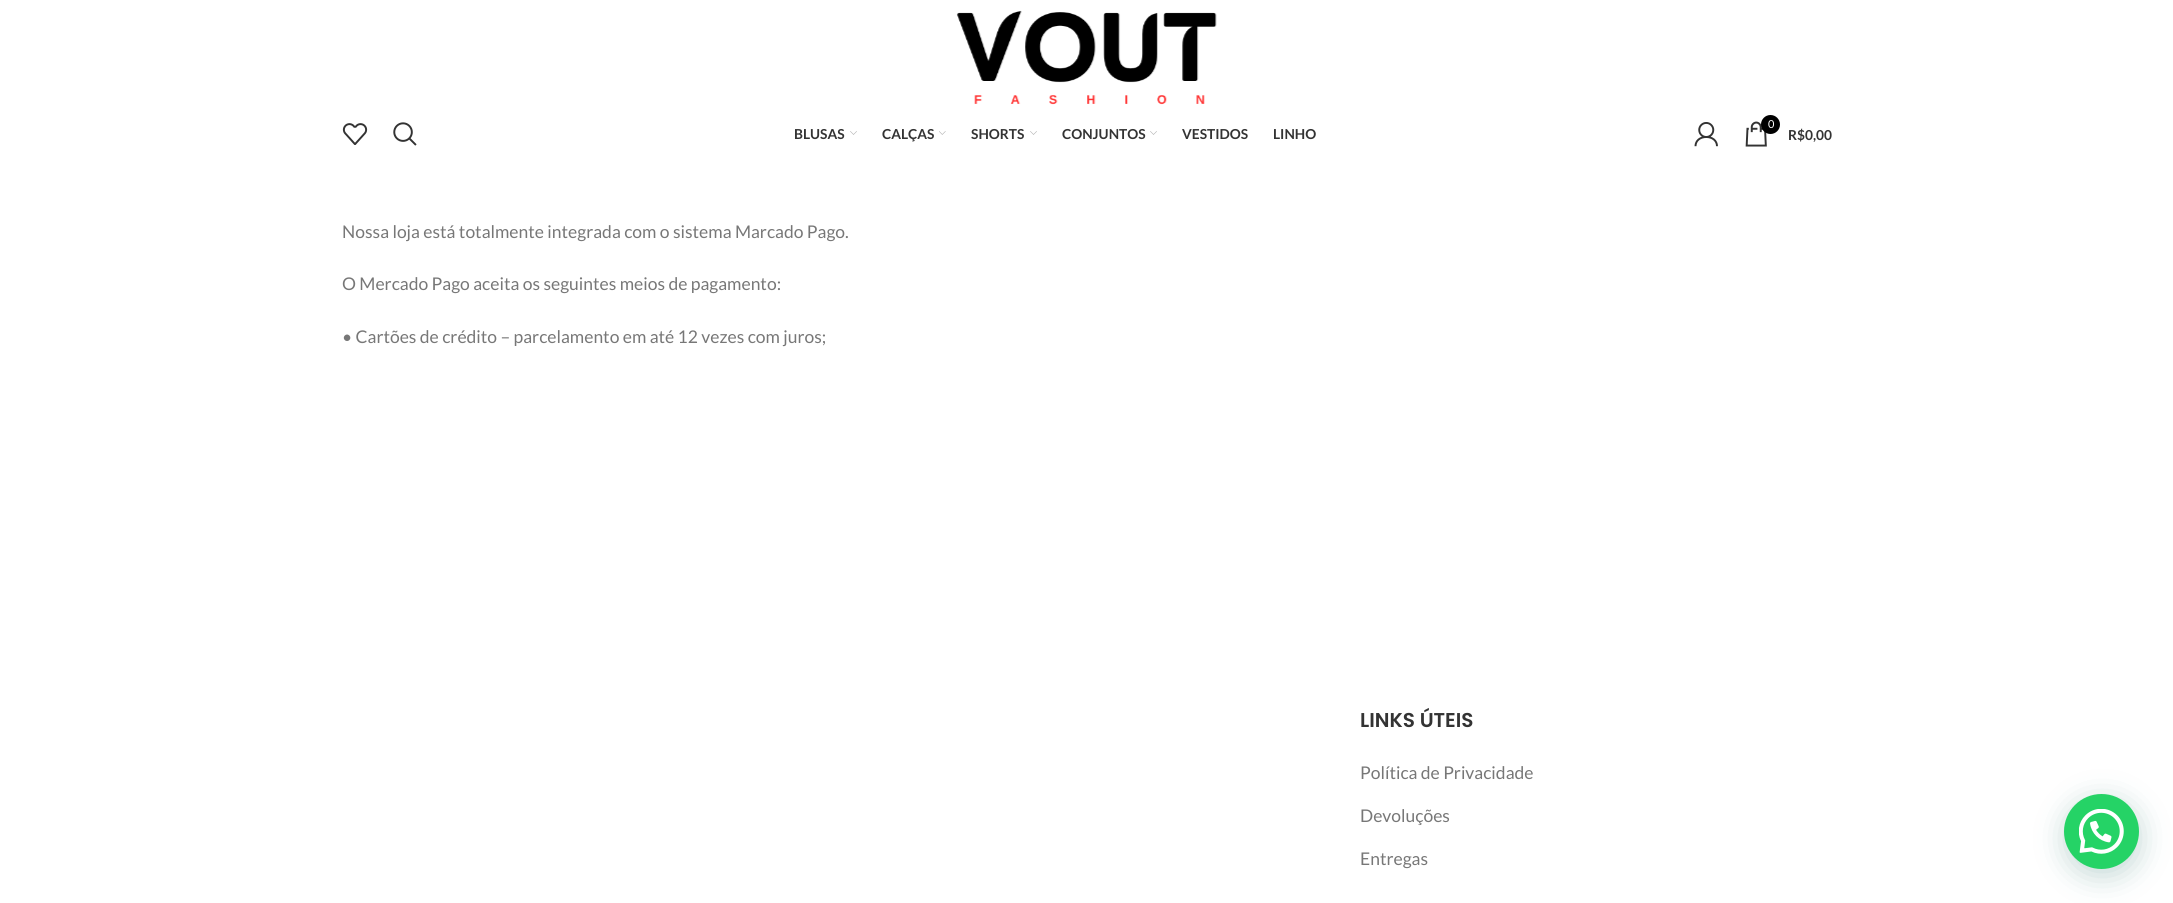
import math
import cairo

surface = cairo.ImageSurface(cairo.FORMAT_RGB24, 2173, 903)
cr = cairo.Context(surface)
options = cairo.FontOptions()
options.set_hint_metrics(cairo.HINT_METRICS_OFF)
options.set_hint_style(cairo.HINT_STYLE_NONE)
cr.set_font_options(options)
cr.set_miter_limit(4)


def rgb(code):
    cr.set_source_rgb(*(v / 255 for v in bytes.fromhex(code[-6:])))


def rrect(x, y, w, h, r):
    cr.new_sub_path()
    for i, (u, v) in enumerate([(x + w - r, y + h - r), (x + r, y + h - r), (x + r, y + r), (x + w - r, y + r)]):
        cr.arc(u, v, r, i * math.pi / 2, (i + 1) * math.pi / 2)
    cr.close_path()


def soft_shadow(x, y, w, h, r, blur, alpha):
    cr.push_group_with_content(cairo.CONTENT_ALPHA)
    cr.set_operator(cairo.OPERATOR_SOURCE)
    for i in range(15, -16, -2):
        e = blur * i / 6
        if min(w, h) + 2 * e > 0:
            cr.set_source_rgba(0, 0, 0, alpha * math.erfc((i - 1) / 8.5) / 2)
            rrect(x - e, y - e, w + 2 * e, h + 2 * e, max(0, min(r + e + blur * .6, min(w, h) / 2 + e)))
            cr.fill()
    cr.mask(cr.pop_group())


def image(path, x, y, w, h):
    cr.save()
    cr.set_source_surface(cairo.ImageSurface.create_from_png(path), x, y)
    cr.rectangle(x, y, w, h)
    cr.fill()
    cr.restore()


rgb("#ffffff")
cr.paint()
image("img/1.png", 956, 10, 261, 95)
image("img/2.png", 342, 123, 26, 22)
image("img/3.png", 393, 122, 24, 24)
image("img/4.png", 850, 131, 7, 4)
image("img/5.png", 939, 131, 7, 4)
image("img/4.png", 1030, 131, 7, 4)
image("img/4.png", 1150, 131, 7, 4)
image("img/6.png", 1694, 122, 24, 25)
image("img/7.png", 1745, 121, 22, 26)
rgb("#000000")
cr.arc(1770.5, 124.5, 9.5, 0, 2 * math.pi)
cr.fill()
rgb("#075e54")
soft_shadow(2065, 801, 75, 75, 37.5, 15, 0.24)
rgb("#25d366")
cr.arc(2101.5, 831.5, 37.5, 0, 2 * math.pi)
cr.fill()
image("img/8.png", 2079, 809, 45, 45)
cr.select_font_face("Lato", cairo.FONT_SLANT_NORMAL, cairo.FONT_WEIGHT_BOLD)
cr.set_font_size(13.75)
rgb("#333333")
for x, y, s in [
    (794, 139, "BLUSAS"),
    (882, 139, "CALÇAS"),
    (971, 139, "SHORTS"),
    (1062, 139, "CONJUNTOS"),
    (1182, 139, "VESTIDOS"),
    (1273, 139, "LINHO"),
]:
    cr.move_to(x, y)
    cr.show_text(s)
cr.select_font_face("Lato")
cr.set_font_size(11)
rgb("#ffffff")
cr.move_to(1768, 128)
cr.show_text("0")
cr.select_font_face("Lato", cairo.FONT_SLANT_NORMAL, cairo.FONT_WEIGHT_BOLD)
cr.set_font_size(13.75)
rgb("#333333")
cr.move_to(1788, 140)
cr.show_text("R$0,00")
cr.select_font_face("Lato")
cr.set_font_size(17.5)
rgb("#777777")
for x, y, s in [
    (342, 238, "Nossa loja está totalmente integrada com o sistema Marcado Pago."),
    (342, 290, "O Mercado Pago aceita os seguintes meios de pagamento:"),
    (342, 343, "• Cartões de crédito – parcelamento em até 12 vezes com juros;"),
]:
    cr.move_to(x, y)
    cr.show_text(s)
cr.select_font_face("Poppins SemiBold")
cr.set_font_size(20)
rgb("#333333")
cr.move_to(1360, 727)
cr.show_text("LINKS ÚTEIS")
cr.select_font_face("Lato")
cr.set_font_size(17.5)
rgb("#777777")
for x, y, s in [
    (1360, 779, "Política de Privacidade"),
    (1360, 822, "Devoluções"),
    (1360, 865, "Entregas"),
]:
    cr.move_to(x, y)
    cr.show_text(s)
surface.write_to_png("page.png")
